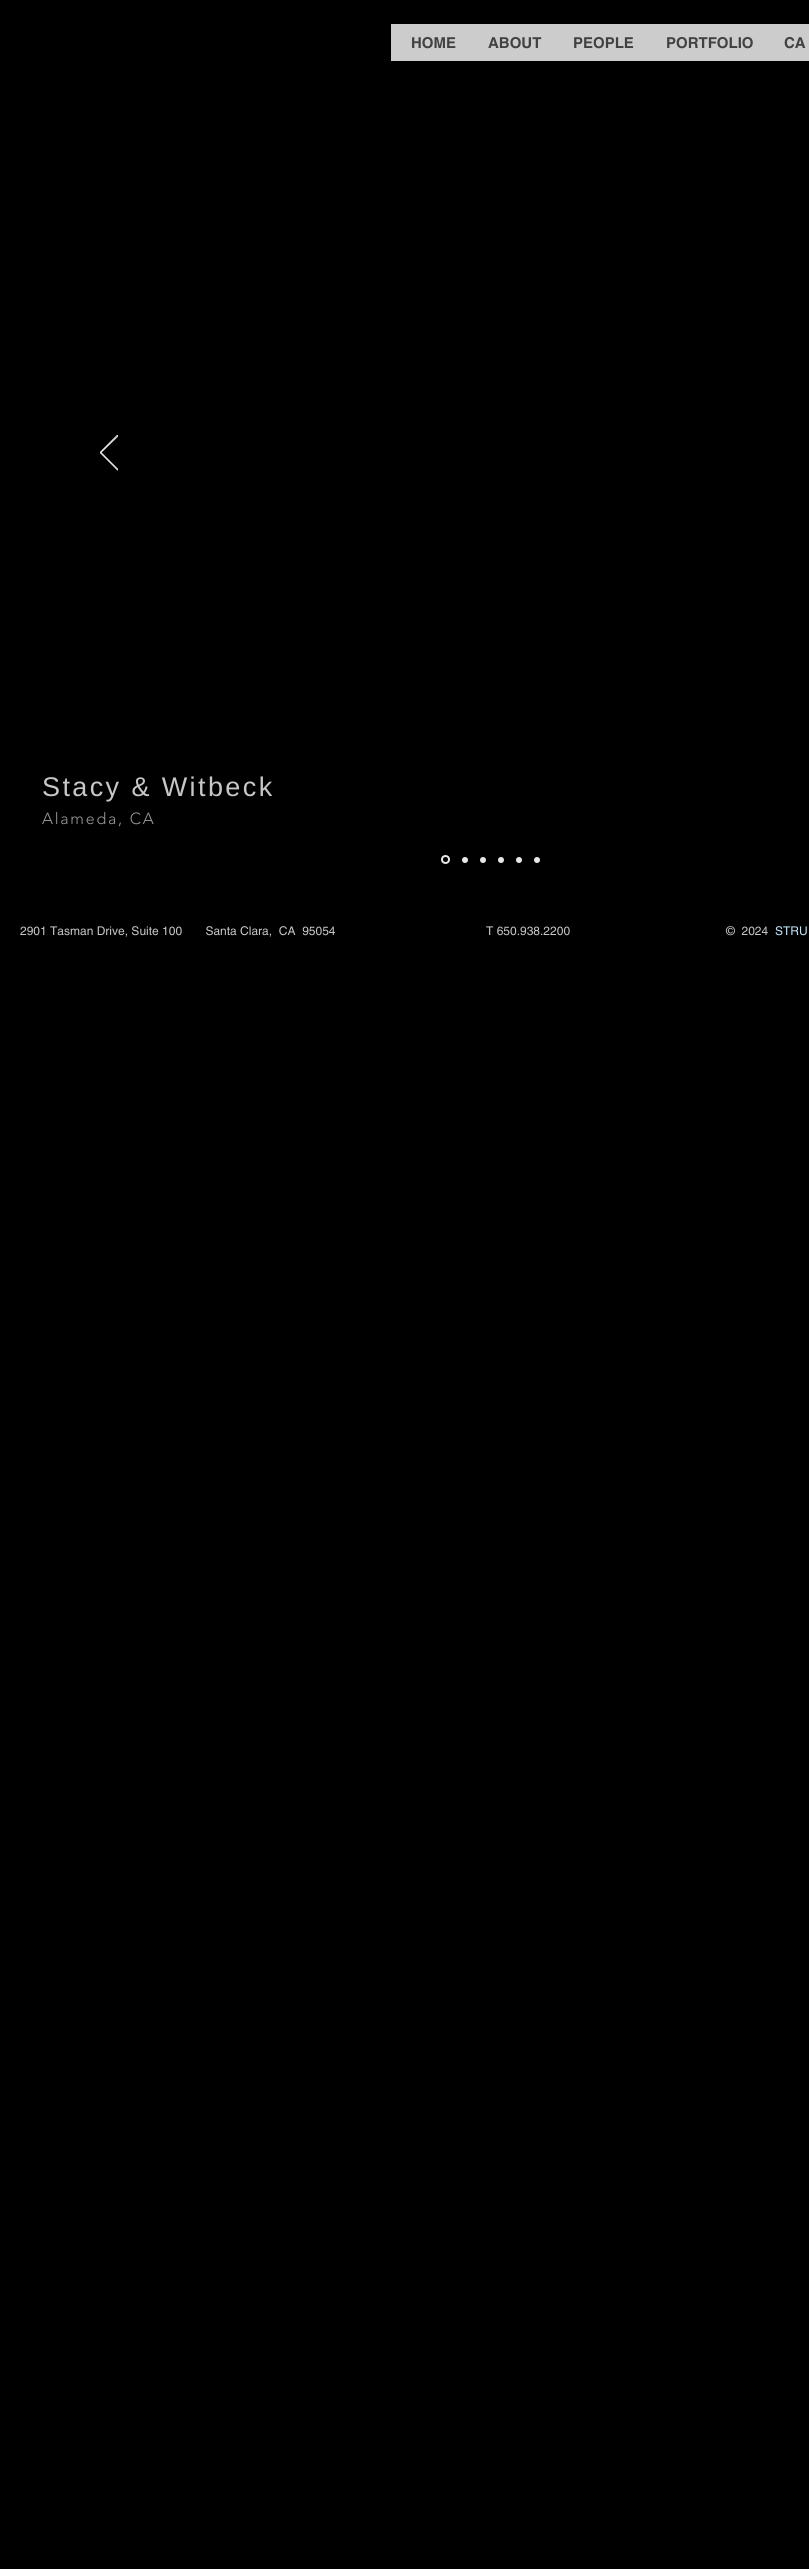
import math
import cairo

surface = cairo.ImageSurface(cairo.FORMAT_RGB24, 809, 2569)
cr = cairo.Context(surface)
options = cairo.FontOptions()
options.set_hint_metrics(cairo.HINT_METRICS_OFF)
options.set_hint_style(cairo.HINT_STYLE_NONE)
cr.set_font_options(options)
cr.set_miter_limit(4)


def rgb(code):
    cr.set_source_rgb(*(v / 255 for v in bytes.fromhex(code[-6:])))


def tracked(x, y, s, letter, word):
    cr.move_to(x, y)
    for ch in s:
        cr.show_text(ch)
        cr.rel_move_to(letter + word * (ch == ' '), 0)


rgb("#000000")
cr.paint()
rgb("#cccccc")
cr.rectangle(391, 24, 418, 37)
cr.fill()
cr.save()
cr.rectangle(100, 435, 18, 36)
cr.clip()
cr.new_path()
cr.move_to(117.5, 470)
cr.line_to(100, 452.5)
cr.line_to(117.5, 435)
cr.line_to(118, 436)
cr.line_to(101, 452.5)
cr.line_to(118, 469.5)
cr.close_path()
rgb("#e8e6e6")
cr.set_line_width(0.9)
cr.stroke()
cr.restore()
cr.arc(445.5, 859.5, 3.5, 0, 2 * math.pi)
rgb("#e8e6e6")
cr.stroke()
cr.arc(465, 860, 3, 0, 2 * math.pi)
cr.fill()
cr.arc(483, 860, 3, 0, 2 * math.pi)
cr.fill()
cr.arc(501, 860, 3, 0, 2 * math.pi)
cr.fill()
cr.arc(519, 860, 3, 0, 2 * math.pi)
cr.fill()
cr.arc(537, 860, 3, 0, 2 * math.pi)
cr.fill()
cr.select_font_face("helvetica", cairo.FONT_SLANT_NORMAL, cairo.FONT_WEIGHT_BOLD)
cr.set_font_size(15)
rgb("#414141")
for x, y, s in [
    (411, 48, "HOME"),
    (488, 48, "ABOUT"),
    (573, 48, "PEOPLE"),
    (666, 48, "PORTFOLIO"),
    (784, 48, "CA"),
]:
    cr.move_to(x, y)
    cr.show_text(s)
cr.select_font_face("Liberation Sans")
cr.set_font_size(27)
rgb("#c7c7c7")
tracked(42, 796, "Stacy & Witbeck", 2.4, 0)
cr.select_font_face("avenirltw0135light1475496 Light")
cr.set_font_size(16)
rgb("#999997")
tracked(42, 824, "Alameda, CA", 1.75, 0)
cr.select_font_face("helvetica")
cr.set_font_size(12)
rgb("#c7c7c7")
for x, y, s in [
    (20, 935, "2901 Tasman Drive, Suite 100       Santa Clara,  CA  95054"),
    (486, 935, "T 650.938.2200"),
    (726, 935, "©  2024"),
]:
    cr.move_to(x, y)
    cr.show_text(s)
rgb("#bee5fb")
cr.move_to(775, 935)
cr.show_text("STRU")
surface.write_to_png("page.png")
